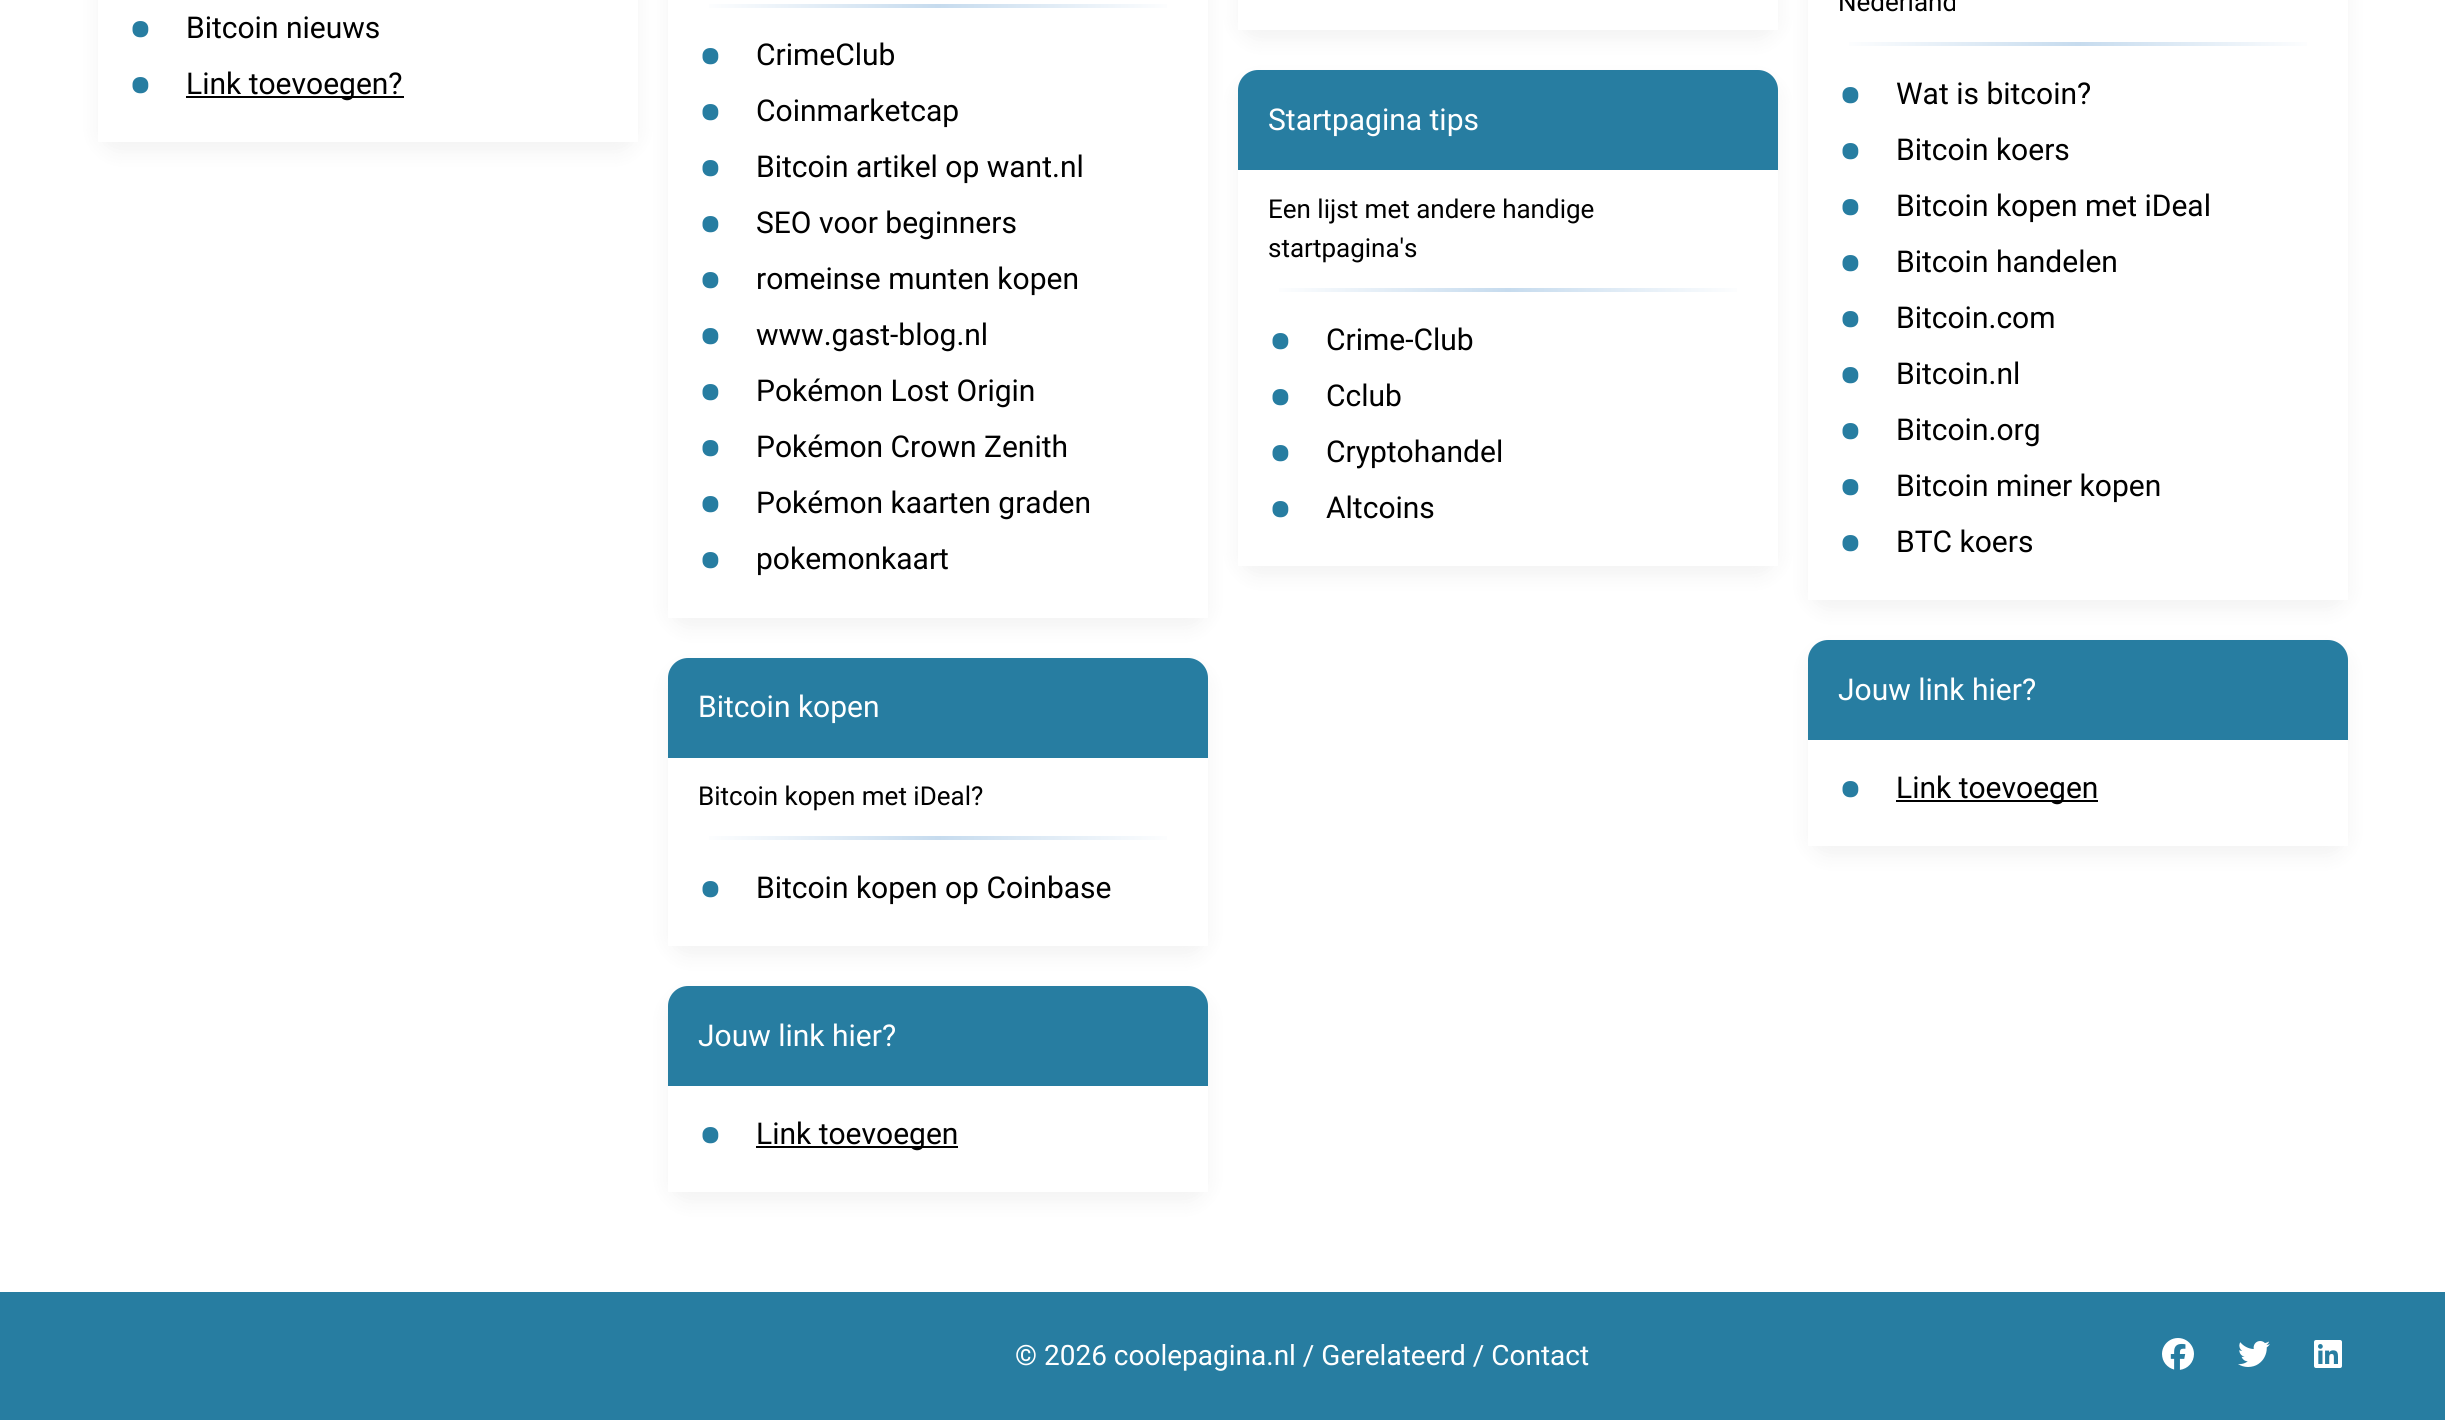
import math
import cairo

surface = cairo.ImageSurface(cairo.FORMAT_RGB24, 2445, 1420)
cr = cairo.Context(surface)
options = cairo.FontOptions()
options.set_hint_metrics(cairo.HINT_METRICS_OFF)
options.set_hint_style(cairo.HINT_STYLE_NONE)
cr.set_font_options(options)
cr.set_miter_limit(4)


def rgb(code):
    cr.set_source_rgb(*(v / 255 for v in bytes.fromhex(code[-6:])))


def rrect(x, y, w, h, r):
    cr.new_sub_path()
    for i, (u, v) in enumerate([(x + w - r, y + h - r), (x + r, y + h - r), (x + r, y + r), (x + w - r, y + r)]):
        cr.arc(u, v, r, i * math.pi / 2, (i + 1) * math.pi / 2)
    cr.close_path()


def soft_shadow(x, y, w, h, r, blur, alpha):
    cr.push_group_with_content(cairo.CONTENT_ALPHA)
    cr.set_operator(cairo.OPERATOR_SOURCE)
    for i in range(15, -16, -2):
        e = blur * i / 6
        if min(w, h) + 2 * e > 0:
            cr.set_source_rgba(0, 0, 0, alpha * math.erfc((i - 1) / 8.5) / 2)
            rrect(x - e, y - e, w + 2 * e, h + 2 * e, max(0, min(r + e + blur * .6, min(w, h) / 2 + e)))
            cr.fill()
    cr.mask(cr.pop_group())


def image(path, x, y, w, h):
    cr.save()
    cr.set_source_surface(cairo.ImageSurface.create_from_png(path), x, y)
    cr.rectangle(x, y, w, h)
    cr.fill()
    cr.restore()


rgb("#ffffff")
cr.paint()
cr.save()
cr.set_fill_rule(cairo.FILL_RULE_EVEN_ODD)
cr.new_path()
cr.move_to(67, 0)
cr.line_to(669, 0)
cr.line_to(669, 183)
cr.line_to(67, 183)
cr.close_path()
cr.move_to(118, -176)
cr.line_to(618, -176)
cr.curve_to(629, -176, 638, -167, 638, -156)
cr.line_to(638, 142)
cr.line_to(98, 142)
cr.line_to(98, -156)
cr.curve_to(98, -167, 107, -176, 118, -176)
cr.close_path()
cr.clip()
rgb("#000000")
soft_shadow(98, -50, 540, 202, 20, 10, 0.05)
cr.restore()
rgb("#000000")
cr.rectangle(186, 96, 218, 2)
cr.fill()
cr.save()
cr.set_fill_rule(cairo.FILL_RULE_EVEN_ODD)
cr.new_path()
cr.move_to(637, 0)
cr.line_to(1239, 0)
cr.line_to(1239, 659)
cr.line_to(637, 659)
cr.close_path()
cr.move_to(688, -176)
cr.line_to(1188, -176)
cr.curve_to(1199, -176, 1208, -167, 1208, -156)
cr.line_to(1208, 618)
cr.line_to(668, 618)
cr.line_to(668, -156)
cr.curve_to(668, -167, 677, -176, 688, -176)
cr.close_path()
cr.clip()
rgb("#000000")
soft_shadow(668, -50, 540, 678, 20, 10, 0.05)
cr.restore()
gradient = cairo.LinearGradient(698, 6, 1178, 6)
gradient.add_color_stop_rgba(0, 1, 1, 1, 1)
gradient.add_color_stop_rgba(0.5, 0.776, 0.859, 0.933, 1)
gradient.add_color_stop_rgba(1, 1, 1, 1, 1)
cr.set_source(gradient)
cr.rectangle(709, 4, 458, 4)
cr.fill()
cr.save()
cr.set_fill_rule(cairo.FILL_RULE_EVEN_ODD)
cr.new_path()
cr.move_to(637, 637)
cr.line_to(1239, 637)
cr.line_to(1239, 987)
cr.line_to(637, 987)
cr.close_path()
cr.move_to(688, 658)
cr.line_to(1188, 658)
cr.curve_to(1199, 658, 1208, 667, 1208, 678)
cr.line_to(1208, 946)
cr.line_to(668, 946)
cr.line_to(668, 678)
cr.curve_to(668, 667, 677, 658, 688, 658)
cr.close_path()
cr.clip()
rgb("#000000")
soft_shadow(668, 668, 540, 288, 20, 10, 0.05)
cr.restore()
rgb("#277da1")
cr.new_path()
cr.move_to(688, 658)
cr.line_to(1188, 658)
cr.curve_to(1199, 658, 1208, 667, 1208, 678)
cr.line_to(1208, 758)
cr.line_to(668, 758)
cr.line_to(668, 678)
cr.curve_to(668, 667, 677, 658, 688, 658)
cr.close_path()
cr.fill()
gradient = cairo.LinearGradient(698, 838, 1178, 838)
gradient.add_color_stop_rgba(0, 1, 1, 1, 1)
gradient.add_color_stop_rgba(0.5, 0.776, 0.859, 0.933, 1)
gradient.add_color_stop_rgba(1, 1, 1, 1, 1)
cr.set_source(gradient)
cr.rectangle(709, 836, 458, 4)
cr.fill()
cr.save()
cr.set_fill_rule(cairo.FILL_RULE_EVEN_ODD)
cr.new_path()
cr.move_to(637, 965)
cr.line_to(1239, 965)
cr.line_to(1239, 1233)
cr.line_to(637, 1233)
cr.close_path()
cr.move_to(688, 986)
cr.line_to(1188, 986)
cr.curve_to(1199, 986, 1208, 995, 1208, 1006)
cr.line_to(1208, 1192)
cr.line_to(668, 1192)
cr.line_to(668, 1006)
cr.curve_to(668, 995, 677, 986, 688, 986)
cr.close_path()
cr.clip()
rgb("#000000")
soft_shadow(668, 996, 540, 206, 20, 10, 0.05)
cr.restore()
rgb("#277da1")
cr.new_path()
cr.move_to(688, 986)
cr.line_to(1188, 986)
cr.curve_to(1199, 986, 1208, 995, 1208, 1006)
cr.line_to(1208, 1086)
cr.line_to(668, 1086)
cr.line_to(668, 1006)
cr.curve_to(668, 995, 677, 986, 688, 986)
cr.close_path()
cr.fill()
rgb("#000000")
cr.rectangle(756, 1146, 202, 2)
cr.fill()
cr.save()
cr.set_fill_rule(cairo.FILL_RULE_EVEN_ODD)
cr.new_path()
cr.move_to(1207, 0)
cr.line_to(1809, 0)
cr.line_to(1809, 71)
cr.line_to(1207, 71)
cr.close_path()
cr.move_to(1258, -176)
cr.line_to(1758, -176)
cr.curve_to(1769, -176, 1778, -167, 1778, -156)
cr.line_to(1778, 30)
cr.line_to(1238, 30)
cr.line_to(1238, -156)
cr.curve_to(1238, -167, 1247, -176, 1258, -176)
cr.close_path()
cr.clip()
rgb("#000000")
soft_shadow(1238, -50, 540, 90, 20, 10, 0.05)
cr.restore()
cr.save()
cr.set_fill_rule(cairo.FILL_RULE_EVEN_ODD)
cr.new_path()
cr.move_to(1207, 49)
cr.line_to(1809, 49)
cr.line_to(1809, 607)
cr.line_to(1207, 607)
cr.close_path()
cr.move_to(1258, 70)
cr.line_to(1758, 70)
cr.curve_to(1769, 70, 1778, 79, 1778, 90)
cr.line_to(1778, 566)
cr.line_to(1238, 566)
cr.line_to(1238, 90)
cr.curve_to(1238, 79, 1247, 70, 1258, 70)
cr.close_path()
cr.clip()
rgb("#000000")
soft_shadow(1238, 80, 540, 496, 20, 10, 0.05)
cr.restore()
rgb("#277da1")
cr.new_path()
cr.move_to(1258, 70)
cr.line_to(1758, 70)
cr.curve_to(1769, 70, 1778, 79, 1778, 90)
cr.line_to(1778, 170)
cr.line_to(1238, 170)
cr.line_to(1238, 90)
cr.curve_to(1238, 79, 1247, 70, 1258, 70)
cr.close_path()
cr.fill()
gradient = cairo.LinearGradient(1268, 290, 1748, 290)
gradient.add_color_stop_rgba(0, 1, 1, 1, 1)
gradient.add_color_stop_rgba(0.5, 0.776, 0.859, 0.933, 1)
gradient.add_color_stop_rgba(1, 1, 1, 1, 1)
cr.set_source(gradient)
cr.rectangle(1279, 288, 458, 4)
cr.fill()
cr.save()
cr.set_fill_rule(cairo.FILL_RULE_EVEN_ODD)
cr.new_path()
cr.move_to(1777, 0)
cr.line_to(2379, 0)
cr.line_to(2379, 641)
cr.line_to(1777, 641)
cr.close_path()
cr.move_to(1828, -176)
cr.line_to(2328, -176)
cr.curve_to(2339, -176, 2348, -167, 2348, -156)
cr.line_to(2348, 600)
cr.line_to(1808, 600)
cr.line_to(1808, -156)
cr.curve_to(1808, -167, 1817, -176, 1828, -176)
cr.close_path()
cr.clip()
rgb("#000000")
soft_shadow(1808, -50, 540, 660, 20, 10, 0.05)
cr.restore()
gradient = cairo.LinearGradient(1838, 44, 2318, 44)
gradient.add_color_stop_rgba(0, 1, 1, 1, 1)
gradient.add_color_stop_rgba(0.5, 0.776, 0.859, 0.933, 1)
gradient.add_color_stop_rgba(1, 1, 1, 1, 1)
cr.set_source(gradient)
cr.rectangle(1849, 42, 458, 4)
cr.fill()
cr.save()
cr.set_fill_rule(cairo.FILL_RULE_EVEN_ODD)
cr.new_path()
cr.move_to(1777, 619)
cr.line_to(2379, 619)
cr.line_to(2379, 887)
cr.line_to(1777, 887)
cr.close_path()
cr.move_to(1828, 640)
cr.line_to(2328, 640)
cr.curve_to(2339, 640, 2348, 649, 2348, 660)
cr.line_to(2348, 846)
cr.line_to(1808, 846)
cr.line_to(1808, 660)
cr.curve_to(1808, 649, 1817, 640, 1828, 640)
cr.close_path()
cr.clip()
rgb("#000000")
soft_shadow(1808, 650, 540, 206, 20, 10, 0.05)
cr.restore()
rgb("#277da1")
cr.new_path()
cr.move_to(1828, 640)
cr.line_to(2328, 640)
cr.curve_to(2339, 640, 2348, 649, 2348, 660)
cr.line_to(2348, 740)
cr.line_to(1808, 740)
cr.line_to(1808, 660)
cr.curve_to(1808, 649, 1817, 640, 1828, 640)
cr.close_path()
cr.fill()
rgb("#000000")
cr.rectangle(1896, 800, 202, 2)
cr.fill()
rgb("#277da1")
cr.rectangle(0, 1292, 2445, 128)
cr.fill()
image("img/1.png", 2162, 1338, 32, 32)
image("img/2.png", 2238, 1341, 32, 26)
image("img/3.png", 2314, 1340, 28, 28)
cr.select_font_face("Roboto", cairo.FONT_SLANT_NORMAL, cairo.FONT_WEIGHT_BOLD)
cr.set_font_size(68)
cr.move_to(128, 54)
cr.show_text("•")
cr.select_font_face("Roboto")
cr.set_font_size(30)
rgb("#000000")
cr.move_to(186, 38)
cr.show_text("Bitcoin nieuws")
cr.select_font_face("Roboto", cairo.FONT_SLANT_NORMAL, cairo.FONT_WEIGHT_BOLD)
cr.set_font_size(68)
rgb("#277da1")
cr.move_to(128, 110)
cr.show_text("•")
cr.select_font_face("Roboto")
cr.set_font_size(30)
rgb("#000000")
cr.move_to(186, 94)
cr.show_text("Link toevoegen?")
cr.select_font_face("Roboto", cairo.FONT_SLANT_NORMAL, cairo.FONT_WEIGHT_BOLD)
cr.set_font_size(68)
rgb("#277da1")
cr.move_to(698, 81)
cr.show_text("•")
cr.select_font_face("Roboto")
cr.set_font_size(30)
rgb("#000000")
cr.move_to(756, 65)
cr.show_text("CrimeClub")
cr.select_font_face("Roboto", cairo.FONT_SLANT_NORMAL, cairo.FONT_WEIGHT_BOLD)
cr.set_font_size(68)
rgb("#277da1")
cr.move_to(698, 137)
cr.show_text("•")
cr.select_font_face("Roboto")
cr.set_font_size(30)
rgb("#000000")
cr.move_to(756, 121)
cr.show_text("Coinmarketcap")
cr.select_font_face("Roboto", cairo.FONT_SLANT_NORMAL, cairo.FONT_WEIGHT_BOLD)
cr.set_font_size(68)
rgb("#277da1")
cr.move_to(698, 193)
cr.show_text("•")
cr.select_font_face("Roboto")
cr.set_font_size(30)
rgb("#000000")
cr.move_to(756, 177)
cr.show_text("Bitcoin artikel op want.nl")
cr.select_font_face("Roboto", cairo.FONT_SLANT_NORMAL, cairo.FONT_WEIGHT_BOLD)
cr.set_font_size(68)
rgb("#277da1")
cr.move_to(698, 249)
cr.show_text("•")
cr.select_font_face("Roboto")
cr.set_font_size(30)
rgb("#000000")
cr.move_to(756, 233)
cr.show_text("SEO voor beginners")
cr.select_font_face("Roboto", cairo.FONT_SLANT_NORMAL, cairo.FONT_WEIGHT_BOLD)
cr.set_font_size(68)
rgb("#277da1")
cr.move_to(698, 305)
cr.show_text("•")
cr.select_font_face("Roboto")
cr.set_font_size(30)
rgb("#000000")
cr.move_to(756, 289)
cr.show_text("romeinse munten kopen")
cr.select_font_face("Roboto", cairo.FONT_SLANT_NORMAL, cairo.FONT_WEIGHT_BOLD)
cr.set_font_size(68)
rgb("#277da1")
cr.move_to(698, 361)
cr.show_text("•")
cr.select_font_face("Roboto")
cr.set_font_size(30)
rgb("#000000")
cr.move_to(756, 345)
cr.show_text("www.gast-blog.nl")
cr.select_font_face("Roboto", cairo.FONT_SLANT_NORMAL, cairo.FONT_WEIGHT_BOLD)
cr.set_font_size(68)
rgb("#277da1")
cr.move_to(698, 417)
cr.show_text("•")
cr.select_font_face("Roboto")
cr.set_font_size(30)
rgb("#000000")
cr.move_to(756, 401)
cr.show_text("Pokémon Lost Origin")
cr.select_font_face("Roboto", cairo.FONT_SLANT_NORMAL, cairo.FONT_WEIGHT_BOLD)
cr.set_font_size(68)
rgb("#277da1")
cr.move_to(698, 473)
cr.show_text("•")
cr.select_font_face("Roboto")
cr.set_font_size(30)
rgb("#000000")
cr.move_to(756, 457)
cr.show_text("Pokémon Crown Zenith")
cr.select_font_face("Roboto", cairo.FONT_SLANT_NORMAL, cairo.FONT_WEIGHT_BOLD)
cr.set_font_size(68)
rgb("#277da1")
cr.move_to(698, 529)
cr.show_text("•")
cr.select_font_face("Roboto")
cr.set_font_size(30)
rgb("#000000")
cr.move_to(756, 513)
cr.show_text("Pokémon kaarten graden")
cr.select_font_face("Roboto", cairo.FONT_SLANT_NORMAL, cairo.FONT_WEIGHT_BOLD)
cr.set_font_size(68)
rgb("#277da1")
cr.move_to(698, 585)
cr.show_text("•")
cr.select_font_face("Roboto")
cr.set_font_size(30)
rgb("#000000")
cr.move_to(756, 569)
cr.show_text("pokemonkaart")
rgb("#ffffff")
cr.move_to(698, 717)
cr.show_text("Bitcoin kopen")
cr.set_font_size(26)
rgb("#000000")
cr.move_to(698, 805)
cr.show_text("Bitcoin kopen met iDeal?")
cr.select_font_face("Roboto", cairo.FONT_SLANT_NORMAL, cairo.FONT_WEIGHT_BOLD)
cr.set_font_size(68)
rgb("#277da1")
cr.move_to(698, 914)
cr.show_text("•")
cr.select_font_face("Roboto")
cr.set_font_size(30)
rgb("#000000")
cr.move_to(756, 898)
cr.show_text("Bitcoin kopen op Coinbase")
rgb("#ffffff")
cr.move_to(698, 1046)
cr.show_text("Jouw link hier?")
cr.select_font_face("Roboto", cairo.FONT_SLANT_NORMAL, cairo.FONT_WEIGHT_BOLD)
cr.set_font_size(68)
rgb("#277da1")
cr.move_to(698, 1160)
cr.show_text("•")
cr.select_font_face("Roboto")
cr.set_font_size(30)
rgb("#000000")
cr.move_to(756, 1144)
cr.show_text("Link toevoegen")
rgb("#ffffff")
cr.move_to(1268, 130)
cr.show_text("Startpagina tips")
cr.set_font_size(26)
rgb("#000000")
cr.move_to(1268, 218)
cr.show_text("Een lijst met andere handige")
cr.move_to(1268, 257)
cr.show_text("startpagina's")
cr.select_font_face("Roboto", cairo.FONT_SLANT_NORMAL, cairo.FONT_WEIGHT_BOLD)
cr.set_font_size(68)
rgb("#277da1")
cr.move_to(1268, 366)
cr.show_text("•")
cr.select_font_face("Roboto")
cr.set_font_size(30)
rgb("#000000")
cr.move_to(1326, 350)
cr.show_text("Crime-Club")
cr.select_font_face("Roboto", cairo.FONT_SLANT_NORMAL, cairo.FONT_WEIGHT_BOLD)
cr.set_font_size(68)
rgb("#277da1")
cr.move_to(1268, 422)
cr.show_text("•")
cr.select_font_face("Roboto")
cr.set_font_size(30)
rgb("#000000")
cr.move_to(1326, 406)
cr.show_text("Cclub")
cr.select_font_face("Roboto", cairo.FONT_SLANT_NORMAL, cairo.FONT_WEIGHT_BOLD)
cr.set_font_size(68)
rgb("#277da1")
cr.move_to(1268, 478)
cr.show_text("•")
cr.select_font_face("Roboto")
cr.set_font_size(30)
rgb("#000000")
cr.move_to(1326, 462)
cr.show_text("Cryptohandel")
cr.select_font_face("Roboto", cairo.FONT_SLANT_NORMAL, cairo.FONT_WEIGHT_BOLD)
cr.set_font_size(68)
rgb("#277da1")
cr.move_to(1268, 534)
cr.show_text("•")
cr.select_font_face("Roboto")
cr.set_font_size(30)
rgb("#000000")
cr.move_to(1326, 518)
cr.show_text("Altcoins")
cr.set_font_size(26)
cr.move_to(1838, 11)
cr.show_text("Nederland")
cr.select_font_face("Roboto", cairo.FONT_SLANT_NORMAL, cairo.FONT_WEIGHT_BOLD)
cr.set_font_size(68)
rgb("#277da1")
cr.move_to(1838, 120)
cr.show_text("•")
cr.select_font_face("Roboto")
cr.set_font_size(30)
rgb("#000000")
cr.move_to(1896, 104)
cr.show_text("Wat is bitcoin?")
cr.select_font_face("Roboto", cairo.FONT_SLANT_NORMAL, cairo.FONT_WEIGHT_BOLD)
cr.set_font_size(68)
rgb("#277da1")
cr.move_to(1838, 176)
cr.show_text("•")
cr.select_font_face("Roboto")
cr.set_font_size(30)
rgb("#000000")
cr.move_to(1896, 160)
cr.show_text("Bitcoin koers")
cr.select_font_face("Roboto", cairo.FONT_SLANT_NORMAL, cairo.FONT_WEIGHT_BOLD)
cr.set_font_size(68)
rgb("#277da1")
cr.move_to(1838, 232)
cr.show_text("•")
cr.select_font_face("Roboto")
cr.set_font_size(30)
rgb("#000000")
cr.move_to(1896, 216)
cr.show_text("Bitcoin kopen met iDeal")
cr.select_font_face("Roboto", cairo.FONT_SLANT_NORMAL, cairo.FONT_WEIGHT_BOLD)
cr.set_font_size(68)
rgb("#277da1")
cr.move_to(1838, 288)
cr.show_text("•")
cr.select_font_face("Roboto")
cr.set_font_size(30)
rgb("#000000")
cr.move_to(1896, 272)
cr.show_text("Bitcoin handelen")
cr.select_font_face("Roboto", cairo.FONT_SLANT_NORMAL, cairo.FONT_WEIGHT_BOLD)
cr.set_font_size(68)
rgb("#277da1")
cr.move_to(1838, 344)
cr.show_text("•")
cr.select_font_face("Roboto")
cr.set_font_size(30)
rgb("#000000")
cr.move_to(1896, 328)
cr.show_text("Bitcoin.com")
cr.select_font_face("Roboto", cairo.FONT_SLANT_NORMAL, cairo.FONT_WEIGHT_BOLD)
cr.set_font_size(68)
rgb("#277da1")
cr.move_to(1838, 400)
cr.show_text("•")
cr.select_font_face("Roboto")
cr.set_font_size(30)
rgb("#000000")
cr.move_to(1896, 384)
cr.show_text("Bitcoin.nl")
cr.select_font_face("Roboto", cairo.FONT_SLANT_NORMAL, cairo.FONT_WEIGHT_BOLD)
cr.set_font_size(68)
rgb("#277da1")
cr.move_to(1838, 456)
cr.show_text("•")
cr.select_font_face("Roboto")
cr.set_font_size(30)
rgb("#000000")
cr.move_to(1896, 440)
cr.show_text("Bitcoin.org")
cr.select_font_face("Roboto", cairo.FONT_SLANT_NORMAL, cairo.FONT_WEIGHT_BOLD)
cr.set_font_size(68)
rgb("#277da1")
cr.move_to(1838, 512)
cr.show_text("•")
cr.select_font_face("Roboto")
cr.set_font_size(30)
rgb("#000000")
cr.move_to(1896, 496)
cr.show_text("Bitcoin miner kopen")
cr.select_font_face("Roboto", cairo.FONT_SLANT_NORMAL, cairo.FONT_WEIGHT_BOLD)
cr.set_font_size(68)
rgb("#277da1")
cr.move_to(1838, 568)
cr.show_text("•")
cr.select_font_face("Roboto")
cr.set_font_size(30)
rgb("#000000")
cr.move_to(1896, 552)
cr.show_text("BTC koers")
rgb("#ffffff")
cr.move_to(1838, 700)
cr.show_text("Jouw link hier?")
cr.select_font_face("Roboto", cairo.FONT_SLANT_NORMAL, cairo.FONT_WEIGHT_BOLD)
cr.set_font_size(68)
rgb("#277da1")
cr.move_to(1838, 814)
cr.show_text("•")
cr.select_font_face("Roboto")
cr.set_font_size(30)
rgb("#000000")
cr.move_to(1896, 798)
cr.show_text("Link toevoegen")
cr.set_font_size(28)
rgb("#ffffff")
cr.move_to(1015, 1365)
cr.show_text("© 2026 coolepagina.nl / Gerelateerd / Contact")
surface.write_to_png("page.png")
